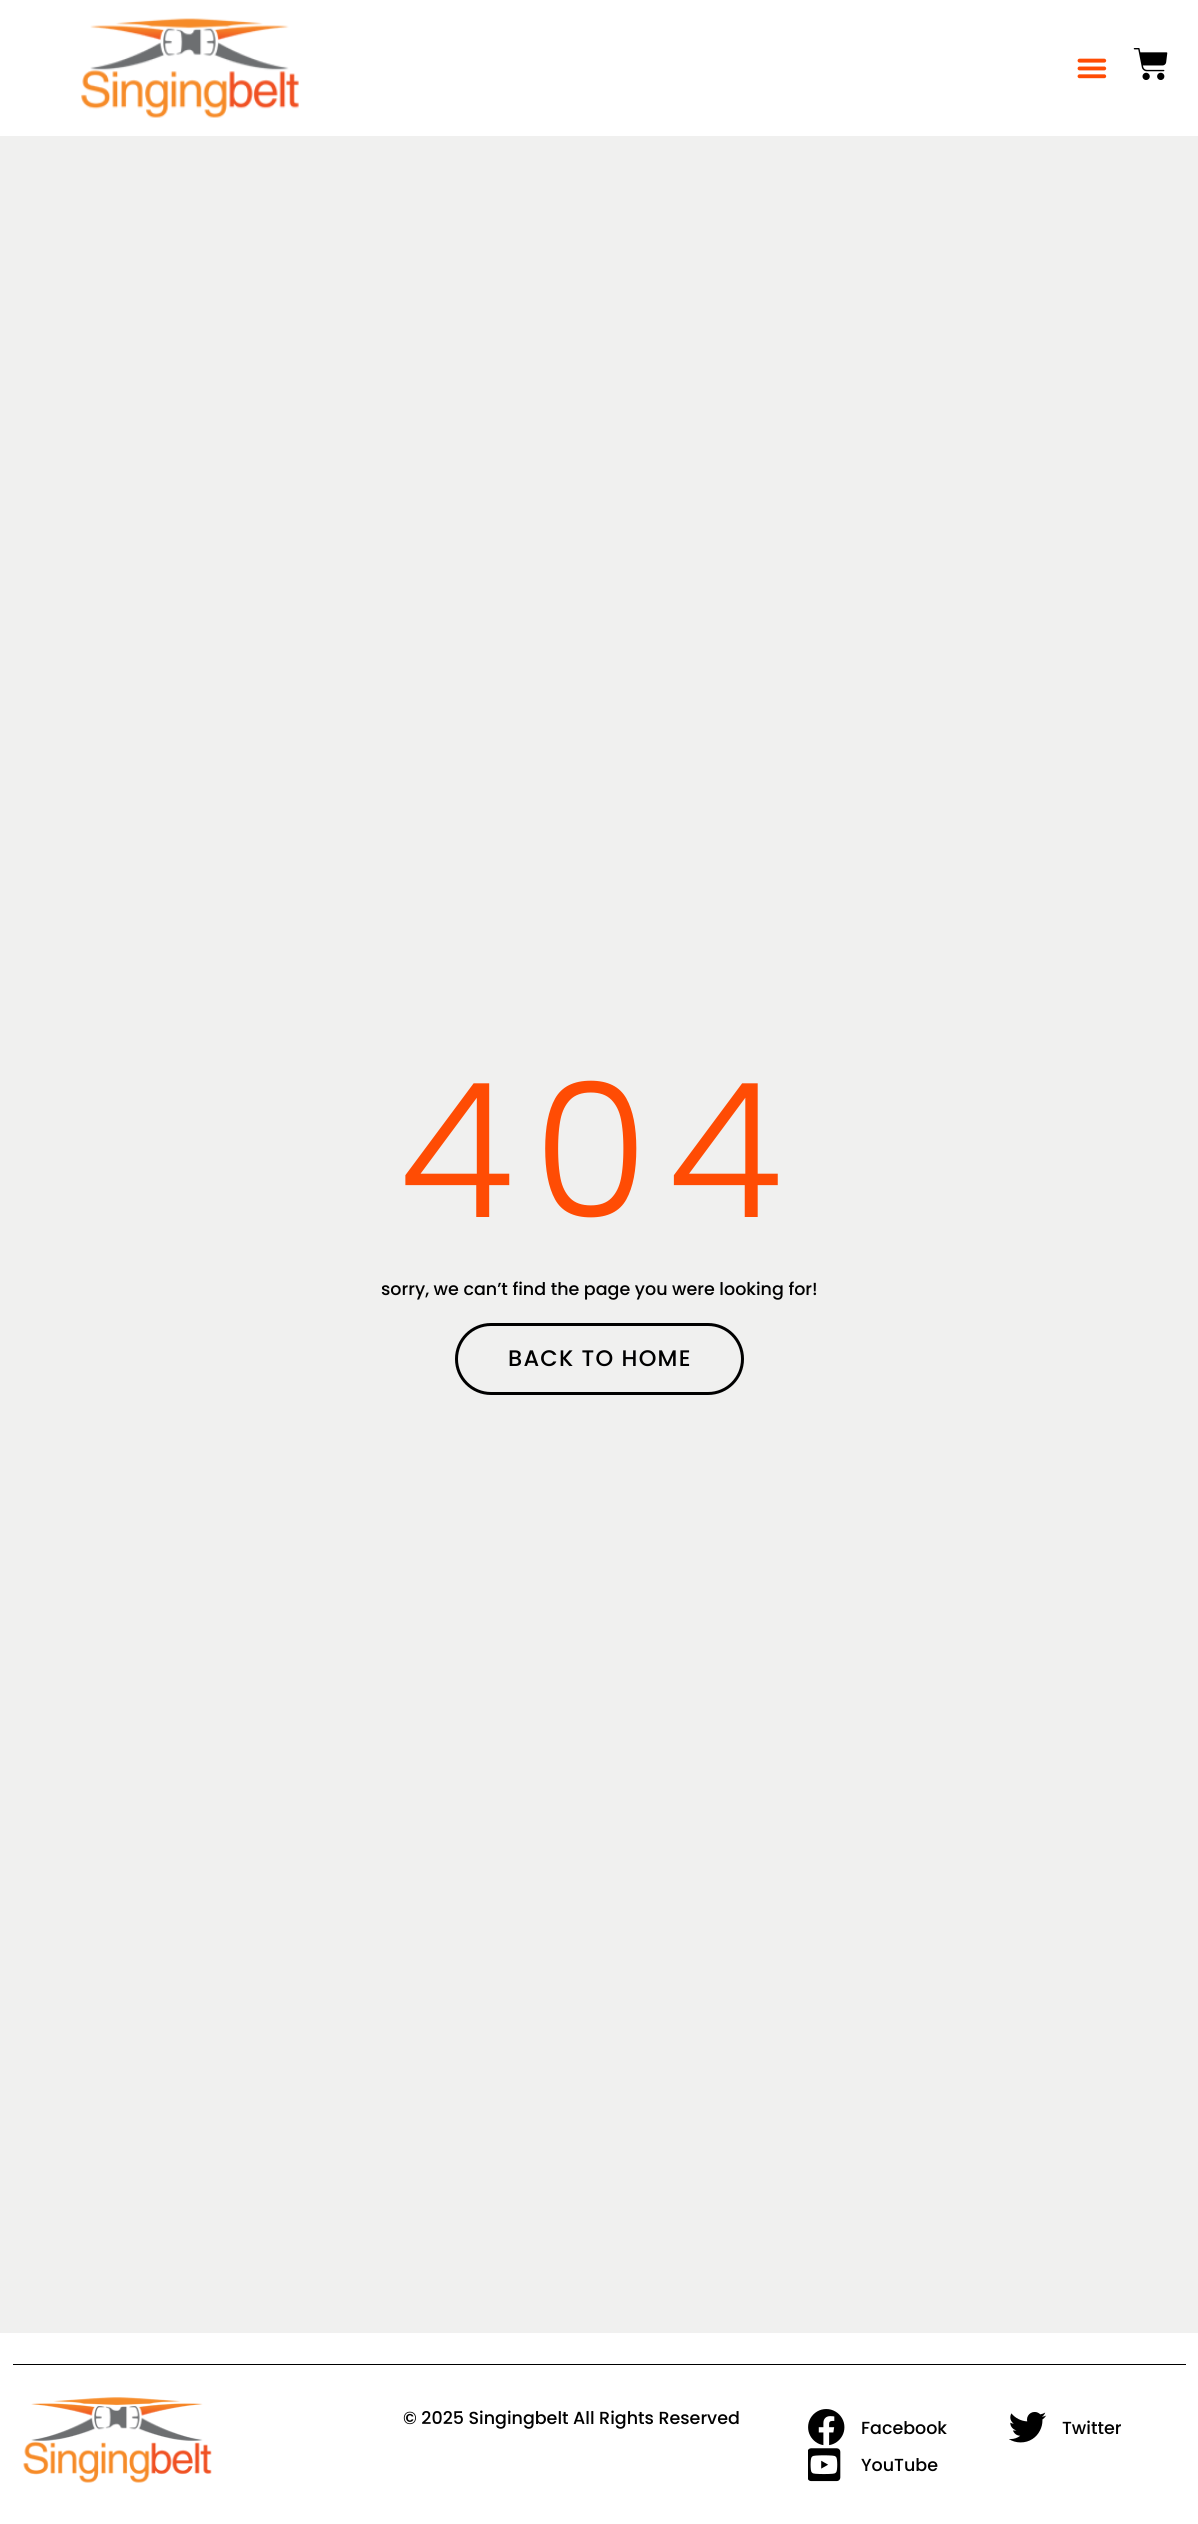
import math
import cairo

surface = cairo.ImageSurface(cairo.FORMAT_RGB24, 1198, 2524)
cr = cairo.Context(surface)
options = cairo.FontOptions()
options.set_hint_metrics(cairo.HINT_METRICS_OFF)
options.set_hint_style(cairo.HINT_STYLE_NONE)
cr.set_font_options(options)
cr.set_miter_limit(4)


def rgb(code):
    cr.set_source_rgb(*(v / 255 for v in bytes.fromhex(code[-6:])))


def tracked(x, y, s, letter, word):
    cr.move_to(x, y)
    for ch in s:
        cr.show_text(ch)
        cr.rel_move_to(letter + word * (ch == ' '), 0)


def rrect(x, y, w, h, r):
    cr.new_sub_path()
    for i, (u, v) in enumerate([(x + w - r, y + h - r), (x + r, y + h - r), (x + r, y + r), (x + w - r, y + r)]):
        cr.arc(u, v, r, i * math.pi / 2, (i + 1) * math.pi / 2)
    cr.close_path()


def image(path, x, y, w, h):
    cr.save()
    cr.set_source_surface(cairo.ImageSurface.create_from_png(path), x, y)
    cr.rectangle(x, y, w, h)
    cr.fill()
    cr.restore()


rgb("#ffffff")
cr.paint()
image("img/1.png", 81, 18, 218, 100)
image("img/2.png", 1077, 58, 30, 21)
image("img/3.png", 1133, 48, 35, 32)
rgb("#f0f0ef")
cr.rectangle(0, 136, 1198, 2197)
cr.fill()
rrect(456.5, 1324.5, 286, 69, 34.5)
rgb("#000000")
cr.set_line_width(3)
cr.stroke()
cr.rectangle(13, 2364, 1173, 1)
cr.fill()
image("img/4.png", 23, 2397, 189, 86)
image("img/5.png", 808, 2409, 37, 37)
image("img/6.png", 1009, 2412, 38, 31)
image("img/7.png", 808, 2448, 33, 34)
cr.select_font_face("Poppins Light")
cr.set_font_size(187.5)
rgb("#ff4c04")
tracked(399, 1217, "404", 19, 0)
cr.select_font_face("Poppins Medium")
cr.set_font_size(17.5)
rgb("#000000")
cr.move_to(381, 1295)
cr.show_text("sorry, we can’t find the page you were looking for!")
cr.set_font_size(22.5)
tracked(508, 1366, "BACK TO HOME", 1.25, 0)
cr.set_font_size(17.5)
for x, y, s in [
    (403, 2424, "© 2025 Singingbelt All Rights Reserved"),
    (861, 2434, "Facebook"),
    (1062, 2434, "Twitter"),
    (861, 2471, "YouTube"),
]:
    cr.move_to(x, y)
    cr.show_text(s)
surface.write_to_png("page.png")
